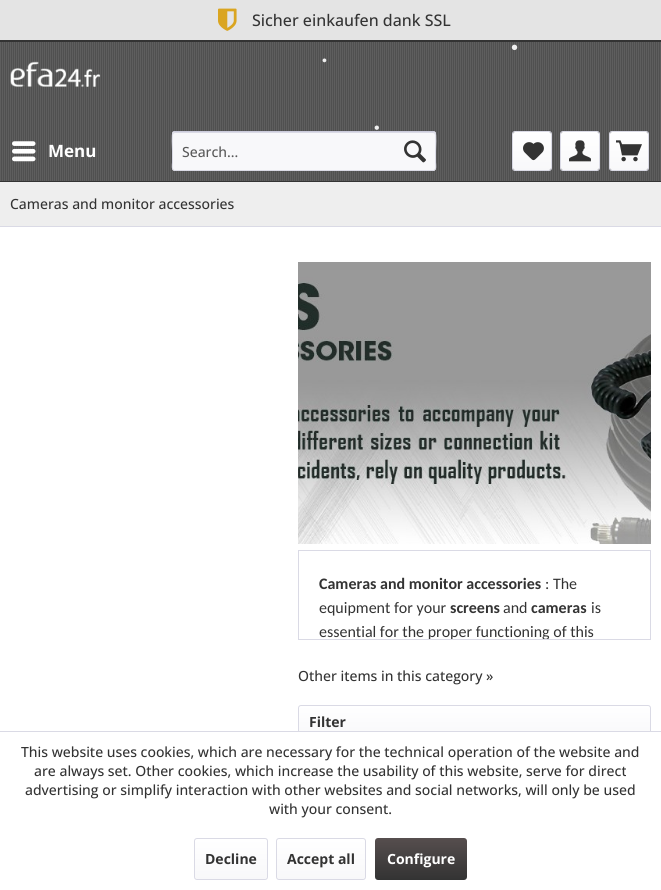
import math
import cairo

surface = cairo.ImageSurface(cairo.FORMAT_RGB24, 661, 890)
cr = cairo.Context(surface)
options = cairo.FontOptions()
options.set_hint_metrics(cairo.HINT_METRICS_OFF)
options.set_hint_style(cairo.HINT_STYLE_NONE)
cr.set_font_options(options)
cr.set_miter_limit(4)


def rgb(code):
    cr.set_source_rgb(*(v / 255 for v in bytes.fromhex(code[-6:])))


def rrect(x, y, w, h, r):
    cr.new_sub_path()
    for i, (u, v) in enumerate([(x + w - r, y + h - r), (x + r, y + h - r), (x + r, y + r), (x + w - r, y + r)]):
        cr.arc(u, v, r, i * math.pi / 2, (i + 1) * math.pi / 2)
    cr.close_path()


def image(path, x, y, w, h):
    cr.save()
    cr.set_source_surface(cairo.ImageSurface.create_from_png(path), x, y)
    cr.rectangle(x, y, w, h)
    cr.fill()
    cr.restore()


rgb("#ffffff")
cr.paint()
image("img/1.png", 0, 42, 661, 139)
image("img/2.png", 0, 42, 661, 139)
for x, y, w, h, color in [
    (0, 181, 661, 1, "#333333"),
    (0, 0, 661, 40, "#e4e4e4"),
    (0, 40, 661, 2, "#333333"),
]:
    rgb(color)
    cr.rectangle(x, y, w, h)
    cr.fill()
image("img/3.png", 218, 8, 19, 23)
image("img/4.png", 10, 61, 91, 26)
image("img/5.png", 12, 141, 24, 21)
rgb("#f8f8fa")
rrect(172, 131, 264, 40, 3)
cr.fill()
rgb("#dadae5")
cr.new_path()
cr.move_to(175, 133)
cr.line_to(433, 133)
cr.curve_to(434, 133, 435, 134, 435, 135)
cr.line_to(435, 134)
cr.curve_to(435, 133, 434, 132, 433, 132)
cr.line_to(175, 132)
cr.curve_to(174, 132, 173, 133, 173, 134)
cr.line_to(173, 135)
cr.curve_to(173, 134, 174, 133, 175, 133)
cr.close_path()
cr.fill()
cr.new_path()
cr.move_to(173, 132)
cr.line_to(175, 131.5)
cr.line_to(433, 131.5)
cr.line_to(435, 132)
rgb("#cbcbdb")
cr.set_line_width(1)
cr.stroke()
cr.new_path()
cr.move_to(435, 132)
cr.curve_to(436.5, 134, 435.5, 148, 435.5, 151)
cr.line_to(435.5, 162.5)
cr.curve_to(435.5, 164, 437, 170.5, 433, 170.5)
cr.line_to(175, 170.5)
cr.curve_to(171, 170.5, 172.5, 164, 172.5, 162.5)
cr.line_to(172.5, 151)
cr.curve_to(172.5, 148, 171.5, 134, 173, 132)
rgb("#dadae5")
cr.stroke()
image("img/6.png", 404, 140, 22, 23)
gradient = cairo.LinearGradient(532, 132, 532, 170)
gradient.add_color_stop_rgba(0, 1, 1, 1, 1)
gradient.add_color_stop_rgba(1, 0.973, 0.973, 0.98, 1)
cr.set_source(gradient)
rrect(513, 132, 38, 38, 2)
cr.fill()
rrect(512.5, 131.5, 39, 39, 2.5)
rgb("#dadae5")
cr.stroke()
image("img/7.png", 523, 142, 21, 19)
gradient = cairo.LinearGradient(580, 132, 580, 170)
gradient.add_color_stop_rgba(0, 1, 1, 1, 1)
gradient.add_color_stop_rgba(1, 0.973, 0.973, 0.98, 1)
cr.set_source(gradient)
rrect(561, 132, 38, 38, 2)
cr.fill()
rrect(560.5, 131.5, 39, 39, 2.5)
rgb("#dadae5")
cr.stroke()
image("img/8.png", 569, 140, 22, 22)
gradient = cairo.LinearGradient(629, 132, 629, 170)
gradient.add_color_stop_rgba(0, 1, 1, 1, 1)
gradient.add_color_stop_rgba(1, 0.973, 0.973, 0.98, 1)
cr.set_source(gradient)
rrect(610, 132, 38, 38, 2)
cr.fill()
rrect(609.5, 131.5, 39, 39, 2.5)
rgb("#dadae5")
cr.stroke()
image("img/9.png", 616, 140, 26, 22)
rgb("#eeeeee")
cr.rectangle(0, 182, 661, 44)
cr.fill()
rgb("#dadae5")
cr.rectangle(0, 226, 661, 1)
cr.fill()
image("img/10.png", 298, 262, 353, 282)
cr.rectangle(298.5, 550.5, 352, 89)
cr.stroke()
gradient = cairo.LinearGradient(475, 706, 475, 738)
gradient.add_color_stop_rgba(0, 1, 1, 1, 1)
gradient.add_color_stop_rgba(1, 0.973, 0.973, 0.98, 1)
cr.set_source(gradient)
rrect(299, 706, 351, 32, 2)
cr.fill()
rrect(298.5, 705.5, 352, 33, 2.5)
rgb("#dadae5")
cr.stroke()
rgb("#ffffff")
cr.rectangle(298, 732, 353, 7)
cr.fill()
rgb("#dadae5")
cr.rectangle(0, 731, 661, 1)
cr.fill()
gradient = cairo.LinearGradient(231, 839, 231, 879)
gradient.add_color_stop_rgba(0, 1, 1, 1, 1)
gradient.add_color_stop_rgba(1, 0.973, 0.973, 0.98, 1)
cr.set_source(gradient)
rrect(195, 839, 72, 40, 2)
cr.fill()
rrect(194.5, 838.5, 73, 41, 2.5)
rgb("#dadae5")
cr.stroke()
gradient = cairo.LinearGradient(321, 839, 321, 879)
gradient.add_color_stop_rgba(0, 1, 1, 1, 1)
gradient.add_color_stop_rgba(1, 0.973, 0.973, 0.98, 1)
cr.set_source(gradient)
rrect(277, 839, 88, 40, 2)
cr.fill()
rrect(276.5, 838.5, 89, 41, 2.5)
rgb("#dadae5")
cr.stroke()
gradient = cairo.LinearGradient(421, 838, 421, 880)
gradient.add_color_stop_rgba(0, 0.337, 0.306, 0.306, 1)
gradient.add_color_stop_rgba(1, 0.2, 0.2, 0.2, 1)
cr.set_source(gradient)
rrect(375, 838, 92, 42, 3)
cr.fill()
cr.select_font_face("Open Sans Medium")
cr.set_font_size(16)
rgb("#333333")
cr.move_to(252, 26)
cr.show_text("Sicher einkaufen dank SSL")
cr.select_font_face("Open Sans", cairo.FONT_SLANT_NORMAL, cairo.FONT_WEIGHT_BOLD)
cr.set_font_size(17)
rgb("#ffffff")
cr.move_to(48, 157)
cr.show_text("Menu")
cr.select_font_face("Open Sans Medium")
cr.set_font_size(14)
rgb("#595959")
cr.move_to(182, 157)
cr.show_text("Search...")
rgb("#333333")
cr.move_to(10, 209)
cr.show_text("Cameras and monitor accessories")
cr.select_font_face("Carlito", cairo.FONT_SLANT_NORMAL, cairo.FONT_WEIGHT_BOLD)
cr.set_font_size(16)
cr.move_to(319, 589)
cr.show_text("Cameras and monitor accessories")
cr.select_font_face("Carlito")
cr.move_to(545, 589)
cr.show_text(": The")
cr.move_to(319, 613)
cr.show_text("equipment for your")
cr.select_font_face("Carlito", cairo.FONT_SLANT_NORMAL, cairo.FONT_WEIGHT_BOLD)
cr.move_to(450, 613)
cr.show_text("screens")
cr.select_font_face("Carlito")
cr.move_to(503, 613)
cr.show_text("and")
cr.select_font_face("Carlito", cairo.FONT_SLANT_NORMAL, cairo.FONT_WEIGHT_BOLD)
cr.move_to(531, 613)
cr.show_text("cameras")
cr.select_font_face("Carlito")
cr.move_to(591, 613)
cr.show_text("is")
cr.save()
cr.rectangle(299, 551, 351, 88)
cr.clip()
cr.move_to(319, 637)
cr.show_text("essential for the proper functioning of this")
cr.restore()
cr.select_font_face("Open Sans Medium")
cr.set_font_size(14)
cr.move_to(298, 681)
cr.show_text("Other items in this category »")
cr.select_font_face("Open Sans", cairo.FONT_SLANT_NORMAL, cairo.FONT_WEIGHT_BOLD)
cr.move_to(309, 727)
cr.show_text("Filter")
cr.select_font_face("Liberation Sans")
cr.set_font_size(20)
rgb("#efefef")
cr.move_to(511, 54)
cr.show_text("•")
cr.set_font_size(14)
cr.move_to(322, 65)
cr.show_text("•")
cr.set_font_size(16)
cr.move_to(374, 133)
cr.show_text("•")
cr.select_font_face("Open Sans Medium")
cr.set_font_size(14)
rgb("#333333")
for x, y, s in [
    (21, 757, "This website uses cookies, which are necessary for the technical operation of the website and"),
    (34, 776, "are always set. Other cookies, which increase the usability of this website, serve for direct"),
    (25, 795, "advertising or simplify interaction with other websites and social networks, will only be used"),
    (269, 814, "with your consent."),
]:
    cr.move_to(x, y)
    cr.show_text(s)
cr.select_font_face("Open Sans", cairo.FONT_SLANT_NORMAL, cairo.FONT_WEIGHT_BOLD)
cr.move_to(205, 864)
cr.show_text("Decline")
cr.move_to(287, 864)
cr.show_text("Accept all")
rgb("#ffffff")
cr.move_to(387, 864)
cr.show_text("Configure")
surface.write_to_png("page.png")
